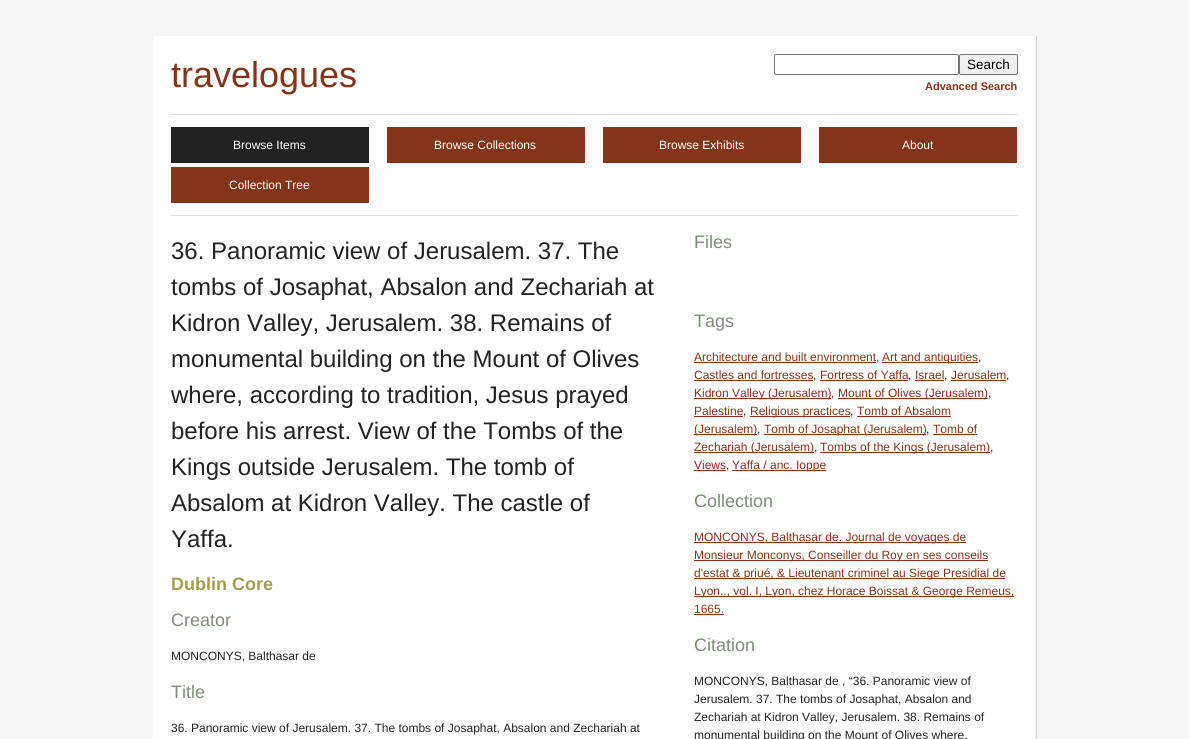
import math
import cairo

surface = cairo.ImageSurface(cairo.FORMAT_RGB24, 1189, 739)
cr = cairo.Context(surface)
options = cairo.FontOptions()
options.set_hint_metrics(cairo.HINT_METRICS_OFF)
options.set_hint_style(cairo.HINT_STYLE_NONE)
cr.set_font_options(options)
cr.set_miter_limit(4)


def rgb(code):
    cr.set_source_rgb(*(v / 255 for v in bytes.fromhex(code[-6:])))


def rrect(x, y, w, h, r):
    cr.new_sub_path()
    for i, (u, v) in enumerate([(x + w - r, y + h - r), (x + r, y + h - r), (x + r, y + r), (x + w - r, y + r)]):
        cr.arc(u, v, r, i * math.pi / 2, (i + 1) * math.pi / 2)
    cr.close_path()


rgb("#f6f6f6")
cr.paint()
rgb("#ffffff")
cr.rectangle(153, 36, 883, 703)
cr.fill()
rgb("#cccccc")
cr.rectangle(1036, 36, 1, 703)
cr.fill()
rrect(774.5, 54.5, 184, 20, 1.5)
rgb("#767676")
cr.set_line_width(1)
cr.stroke()
rgb("#efefef")
rrect(959.5, 54.5, 58, 20, 1.5)
cr.fill_preserve()
rgb("#767676")
cr.stroke()
for x, y, w, h, color in [
    (171, 114, 847, 1, "#dddddd"),
    (171, 127, 198, 36, "#222222"),
    (387, 127, 198, 36, "#843418"),
    (603, 127, 198, 36, "#843418"),
    (819, 127, 198, 36, "#843418"),
    (171, 167, 198, 36, "#843418"),
    (171, 215, 847, 1, "#dddddd"),
    (694, 362, 182, 1, "#843418"),
    (882, 362, 96, 1, "#843418"),
    (694, 380, 119, 1, "#843418"),
    (820, 380, 88, 1, "#843418"),
    (915, 380, 29, 1, "#843418"),
    (951, 380, 55, 1, "#843418"),
    (694, 398, 137, 1, "#843418"),
    (838, 398, 150, 1, "#843418"),
    (694, 416, 49, 1, "#843418"),
    (750, 416, 100, 1, "#843418"),
    (857, 416, 94, 1, "#843418"),
    (694, 434, 63, 1, "#843418"),
    (764, 434, 162, 1, "#843418"),
    (933, 434, 44, 1, "#843418"),
    (694, 452, 120, 1, "#843418"),
    (820, 452, 170, 1, "#843418"),
    (694, 470, 32, 1, "#843418"),
    (732, 470, 94, 1, "#843418"),
    (694, 542, 272, 1, "#843418"),
    (694, 560, 294, 1, "#843418"),
    (694, 578, 311, 1, "#843418"),
    (694, 596, 320, 1, "#843418"),
    (694, 614, 30, 1, "#843418"),
]:
    rgb(color)
    cr.rectangle(x, y, w, h)
    cr.fill()
cr.select_font_face("Liberation Sans")
cr.set_font_size(36)
cr.move_to(171, 87)
cr.show_text("travelogues")
cr.set_font_size(13.5)
rgb("#000000")
cr.move_to(967, 69)
cr.show_text("Search")
cr.select_font_face("Liberation Sans", cairo.FONT_SLANT_NORMAL, cairo.FONT_WEIGHT_BOLD)
cr.set_font_size(11)
rgb("#843418")
cr.move_to(925, 90)
cr.show_text("Advanced Search")
cr.select_font_face("Liberation Sans")
cr.set_font_size(12)
rgb("#ffffff")
for x, y, s in [
    (233, 149, "Browse Items"),
    (434, 149, "Browse Collections"),
    (659, 149, "Browse Exhibits"),
    (902, 149, "About"),
    (229, 189, "Collection Tree"),
]:
    cr.move_to(x, y)
    cr.show_text(s)
cr.set_font_size(24)
rgb("#222222")
for x, y, s in [
    (171, 259, "36. Panoramic view of Jerusalem. 37. The"),
    (171, 295, "tombs of Josaphat, Absalon and Zechariah at"),
    (171, 331, "Kidron Valley, Jerusalem. 38. Remains of"),
    (171, 367, "monumental building on the Mount of Olives"),
    (171, 403, "where, according to tradition, Jesus prayed"),
    (171, 439, "before his arrest. View of the Tombs of the"),
    (171, 475, "Kings outside Jerusalem. The tomb of"),
    (171, 511, "Absalom at Kidron Valley. The castle of"),
    (171, 547, "Yaffa."),
]:
    cr.move_to(x, y)
    cr.show_text(s)
cr.select_font_face("Liberation Sans", cairo.FONT_SLANT_NORMAL, cairo.FONT_WEIGHT_BOLD)
cr.set_font_size(18)
rgb("#a49d4c")
cr.move_to(171, 590)
cr.show_text("Dublin Core")
cr.select_font_face("Liberation Sans")
rgb("#7b8d78")
cr.move_to(171, 626)
cr.show_text("Creator")
cr.set_font_size(12)
rgb("#222222")
cr.move_to(171, 660)
cr.show_text("MONCONYS, Balthasar de")
cr.set_font_size(18)
rgb("#7b8d78")
cr.move_to(171, 698)
cr.show_text("Title")
cr.set_font_size(12)
rgb("#222222")
cr.move_to(171, 732)
cr.show_text("36. Panoramic view of Jerusalem. 37. The tombs of Josaphat, Absalon and Zechariah at")
cr.set_font_size(18)
rgb("#7b8d78")
cr.move_to(694, 248)
cr.show_text("Files")
cr.move_to(694, 327)
cr.show_text("Tags")
cr.set_font_size(12)
rgb("#843418")
cr.move_to(694, 361)
cr.show_text("Architecture and built environment")
rgb("#222222")
cr.move_to(876, 361)
cr.show_text(",")
rgb("#843418")
cr.move_to(882, 361)
cr.show_text("Art and antiquities")
rgb("#222222")
cr.move_to(978, 361)
cr.show_text(",")
rgb("#843418")
cr.move_to(694, 379)
cr.show_text("Castles and fortresses")
rgb("#222222")
cr.move_to(813, 379)
cr.show_text(",")
rgb("#843418")
cr.move_to(820, 379)
cr.show_text("Fortress of Yaffa")
rgb("#222222")
cr.move_to(908, 379)
cr.show_text(",")
rgb("#843418")
cr.move_to(915, 379)
cr.show_text("Israel")
rgb("#222222")
cr.move_to(944, 379)
cr.show_text(",")
rgb("#843418")
cr.move_to(951, 379)
cr.show_text("Jerusalem")
rgb("#222222")
cr.move_to(1006, 379)
cr.show_text(",")
rgb("#843418")
cr.move_to(694, 397)
cr.show_text("Kidron Valley (Jerusalem)")
rgb("#222222")
cr.move_to(831, 397)
cr.show_text(",")
rgb("#843418")
cr.move_to(838, 397)
cr.show_text("Mount of Olives (Jerusalem)")
rgb("#222222")
cr.move_to(988, 397)
cr.show_text(",")
rgb("#843418")
cr.move_to(694, 415)
cr.show_text("Palestine")
rgb("#222222")
cr.move_to(743, 415)
cr.show_text(",")
rgb("#843418")
cr.move_to(750, 415)
cr.show_text("Religious practices")
rgb("#222222")
cr.move_to(850, 415)
cr.show_text(",")
rgb("#843418")
cr.move_to(857, 415)
cr.show_text("Tomb of Absalom")
cr.move_to(694, 433)
cr.show_text("(Jerusalem)")
rgb("#222222")
cr.move_to(757, 433)
cr.show_text(",")
rgb("#843418")
cr.move_to(764, 433)
cr.show_text("Tomb of Josaphat (Jerusalem)")
rgb("#222222")
cr.move_to(926, 433)
cr.show_text(",")
rgb("#843418")
cr.move_to(933, 433)
cr.show_text("Tomb of")
cr.move_to(694, 451)
cr.show_text("Zechariah (Jerusalem)")
rgb("#222222")
cr.move_to(814, 451)
cr.show_text(",")
rgb("#843418")
cr.move_to(820, 451)
cr.show_text("Tombs of the Kings (Jerusalem)")
rgb("#222222")
cr.move_to(990, 451)
cr.show_text(",")
rgb("#843418")
cr.move_to(694, 469)
cr.show_text("Views")
rgb("#222222")
cr.move_to(726, 469)
cr.show_text(",")
rgb("#843418")
cr.move_to(732, 469)
cr.show_text("Yaffa / anc. Ioppe")
cr.set_font_size(18)
rgb("#7b8d78")
cr.move_to(694, 507)
cr.show_text("Collection")
cr.set_font_size(12)
rgb("#843418")
for x, y, s in [
    (694, 541, "MONCONYS, Balthasar de. Journal de voyages de"),
    (694, 559, "Monsieur Monconys, Conseiller du Roy en ses conseils"),
    (694, 577, "d'estat & priué, & Lieutenant criminel au Siege Presidial de"),
    (694, 595, "Lyon.., vol. I, Lyon, chez Horace Boissat & George Remeus,"),
    (694, 613, "1665."),
]:
    cr.move_to(x, y)
    cr.show_text(s)
cr.set_font_size(18)
rgb("#7b8d78")
cr.move_to(694, 651)
cr.show_text("Citation")
cr.set_font_size(12)
rgb("#222222")
for x, y, s in [
    (694, 685, "MONCONYS, Balthasar de , “36. Panoramic view of"),
    (694, 703, "Jerusalem. 37. The tombs of Josaphat, Absalon and"),
    (694, 721, "Zechariah at Kidron Valley, Jerusalem. 38. Remains of"),
    (694, 739, "monumental building on the Mount of Olives where,"),
]:
    cr.move_to(x, y)
    cr.show_text(s)
surface.write_to_png("page.png")
